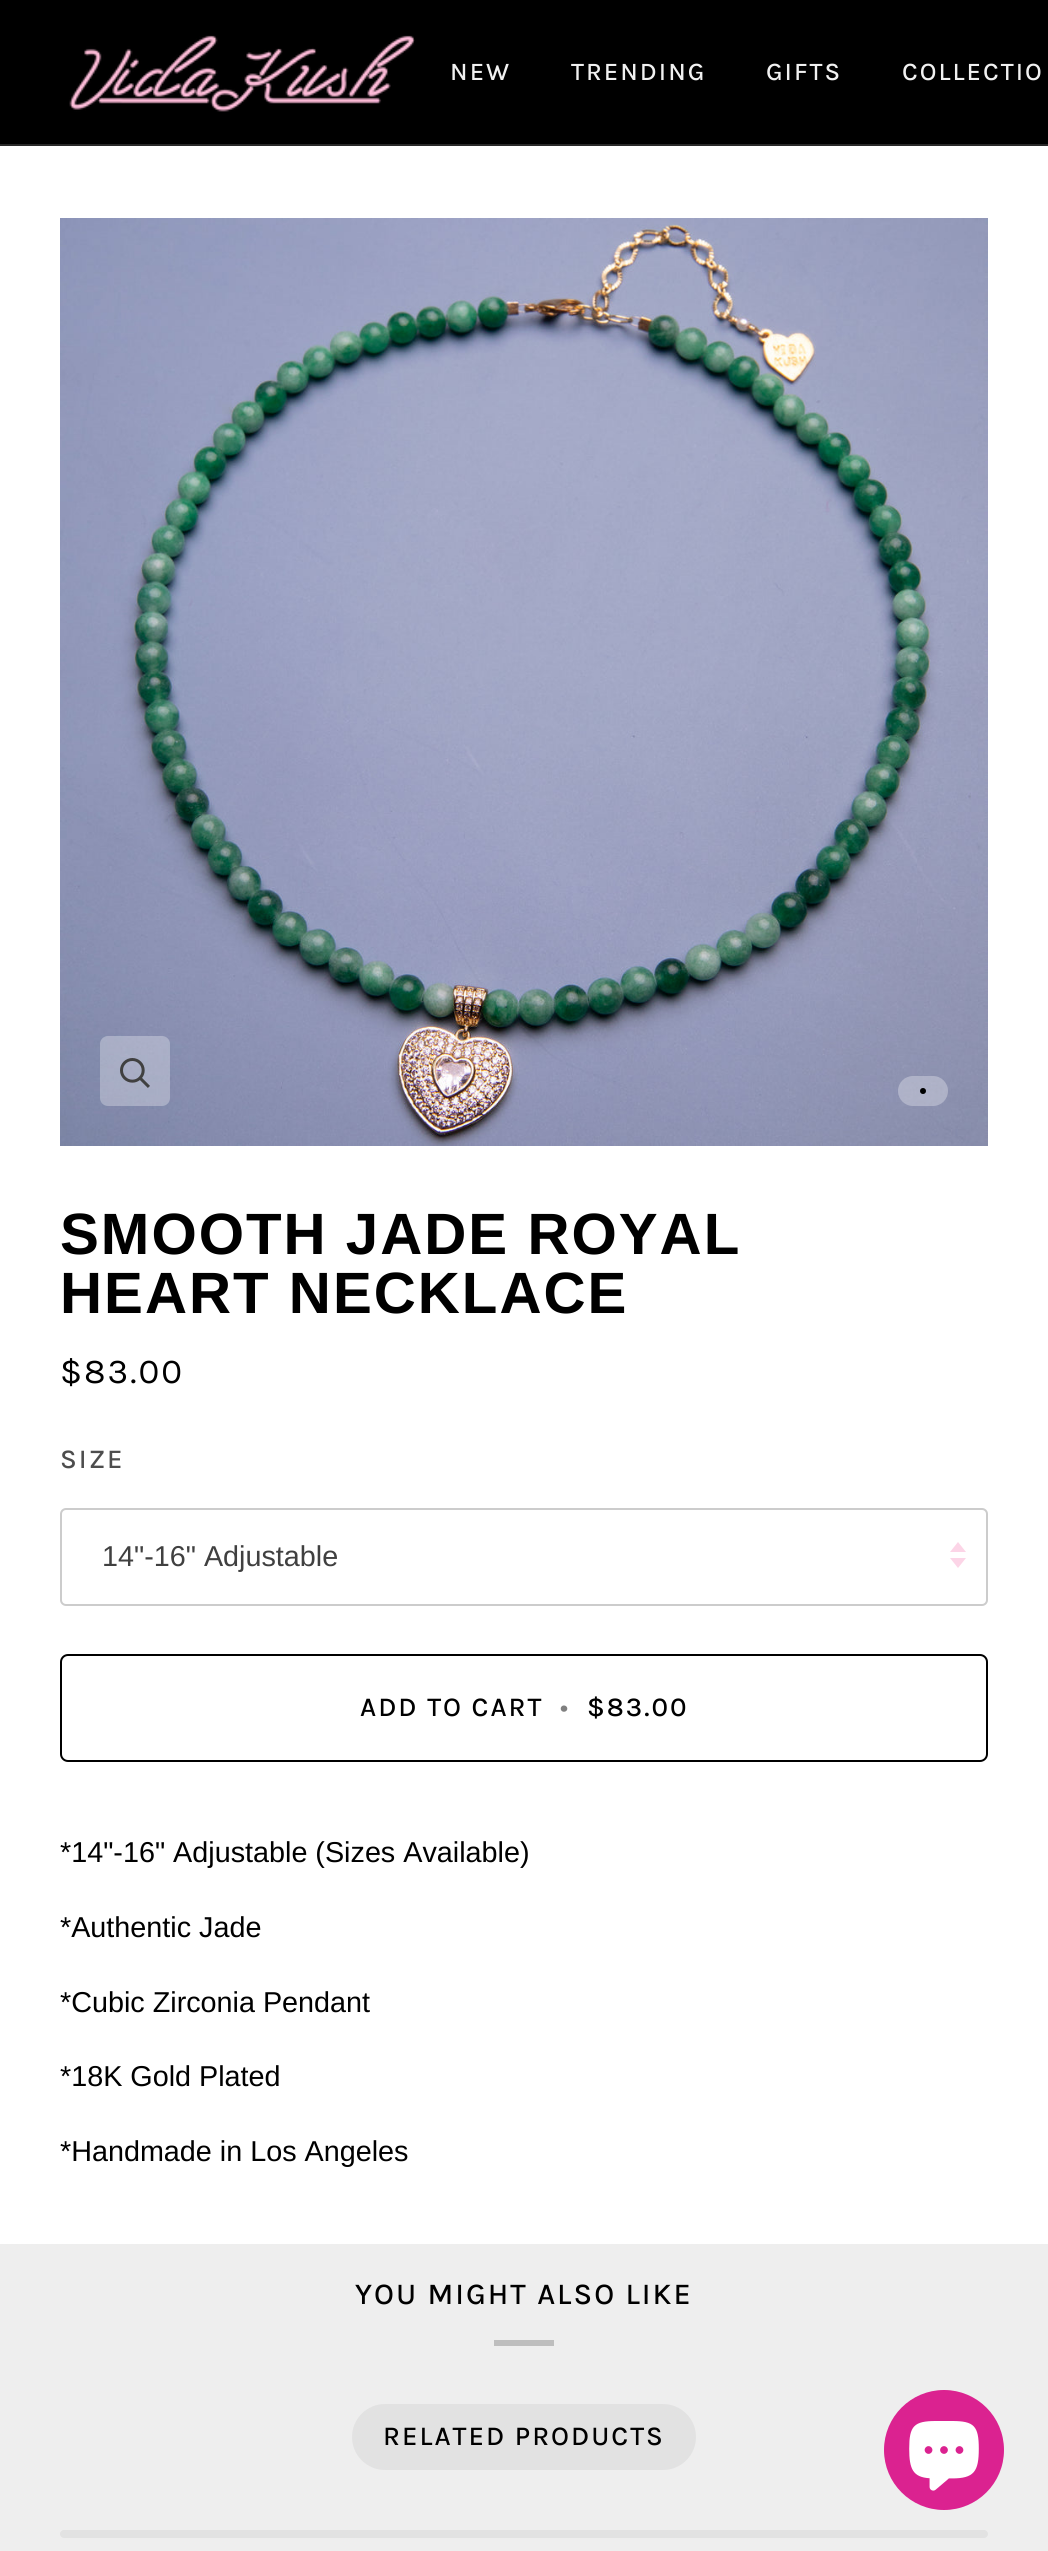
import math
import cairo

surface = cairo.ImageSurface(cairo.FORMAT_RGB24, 1048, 2551)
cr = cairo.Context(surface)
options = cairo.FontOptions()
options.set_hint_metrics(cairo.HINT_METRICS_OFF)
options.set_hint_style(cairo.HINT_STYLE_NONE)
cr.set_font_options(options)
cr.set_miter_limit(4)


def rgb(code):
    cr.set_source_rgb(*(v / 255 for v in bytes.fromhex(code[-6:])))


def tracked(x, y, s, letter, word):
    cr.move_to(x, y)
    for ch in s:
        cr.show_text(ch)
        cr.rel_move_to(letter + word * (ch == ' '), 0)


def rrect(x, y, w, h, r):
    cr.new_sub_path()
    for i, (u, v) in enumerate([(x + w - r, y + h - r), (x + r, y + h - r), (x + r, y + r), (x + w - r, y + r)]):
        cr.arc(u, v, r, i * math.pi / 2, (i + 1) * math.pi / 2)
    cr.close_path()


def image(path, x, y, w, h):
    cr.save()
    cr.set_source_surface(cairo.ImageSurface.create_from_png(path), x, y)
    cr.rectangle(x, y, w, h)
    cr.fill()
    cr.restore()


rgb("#ffffff")
cr.paint()
rgb("#000000")
cr.rectangle(0, 0, 1048, 144)
cr.fill()
rgb("#282828")
cr.rectangle(0, 144, 1048, 2)
cr.fill()
image("img/1.png", 69, 35, 346, 77)
image("img/2.png", 60, 218, 928, 928)
cr.set_source_rgba(1, 1, 1, 0.3)
rrect(100, 1036, 70, 70, 8)
cr.fill()
image("img/3.png", 120, 1058, 30, 30)
rrect(898, 1076, 50, 30, 15)
cr.fill()
rgb("#000000")
cr.arc(923, 1091, 3, 0, 2 * math.pi)
cr.fill()
rrect(61, 1509, 926, 96, 5)
rgb("#cccccc")
cr.stroke()
rgb("#fcd5e7")
cr.new_path()
cr.move_to(950, 1558)
cr.line_to(958, 1568)
cr.line_to(966, 1558)
cr.close_path()
cr.move_to(958, 1542)
cr.line_to(950, 1552)
cr.line_to(966, 1552)
cr.close_path()
cr.fill()
rrect(61, 1655, 926, 106, 7)
rgb("#000000")
cr.stroke()
rgb("#eeeeee")
cr.rectangle(0, 2244, 1048, 307)
cr.fill()
rgb("#bebebe")
cr.rectangle(494, 2340, 60, 6)
cr.fill()
rgb("#e2e2e2")
rrect(352, 2404, 344, 66, 33)
cr.fill()
rrect(60, 2530, 928, 8, 4)
cr.fill()
rgb("#db2290")
cr.arc(944, 2450, 60, 0, 2 * math.pi)
cr.fill()
image("img/4.png", 909, 2421, 70, 70)
cr.select_font_face("Karla Medium")
cr.set_font_size(25.25)
rgb("#f1f1f1")
for x, y, s in [
    (450, 80, "NEW"),
    (571, 80, "TRENDING"),
    (766, 80, "GIFTS"),
    (902, 80, "COLLECTIO"),
]:
    tracked(x, y, s, 2, 0)
cr.select_font_face("Arimo", cairo.FONT_SLANT_NORMAL, cairo.FONT_WEIGHT_BOLD)
cr.set_font_size(58.25)
rgb("#000000")
tracked(60, 1254, "SMOOTH JADE ROYAL", 2, 0)
tracked(60, 1313, "HEART NECKLACE", 2, 0)
cr.select_font_face("Karla")
cr.set_font_size(35)
tracked(60, 1383, "$83.00", 2, 0)
cr.select_font_face("Karla Medium")
cr.set_font_size(27.1)
rgb("#4d4d4d")
tracked(60, 1468, "SIZE", 2, 0)
cr.select_font_face("Arimo")
cr.set_font_size(28.75)
rgb("#404040")
cr.move_to(102, 1566)
cr.show_text("14\"-16\" Adjustable")
cr.select_font_face("Karla Medium")
cr.set_font_size(27.1)
rgb("#000000")
tracked(360, 1716, "ADD TO CART", 2, 0)
rgb("#808080")
tracked(560, 1716, "•", 2, 0)
rgb("#000000")
tracked(587, 1716, "$83.00", 2, 0)
cr.select_font_face("Arimo")
cr.set_font_size(28.75)
for x, y, s in [
    (60, 1862, "*14\"-16\" Adjustable (Sizes Available)"),
    (60, 1937, "*Authentic Jade"),
    (60, 2012, "*Cubic Zirconia Pendant"),
    (60, 2086, "*18K Gold Plated"),
    (60, 2161, "*Handmade in Los Angeles"),
]:
    cr.move_to(x, y)
    cr.show_text(s)
cr.select_font_face("Karla Medium")
cr.set_font_size(30.1)
tracked(355, 2304, "YOU MIGHT ALSO LIKE", 2, 0)
cr.set_font_size(27.1)
tracked(383, 2445, "RELATED PRODUCTS", 2, 0)
surface.write_to_png("page.png")
